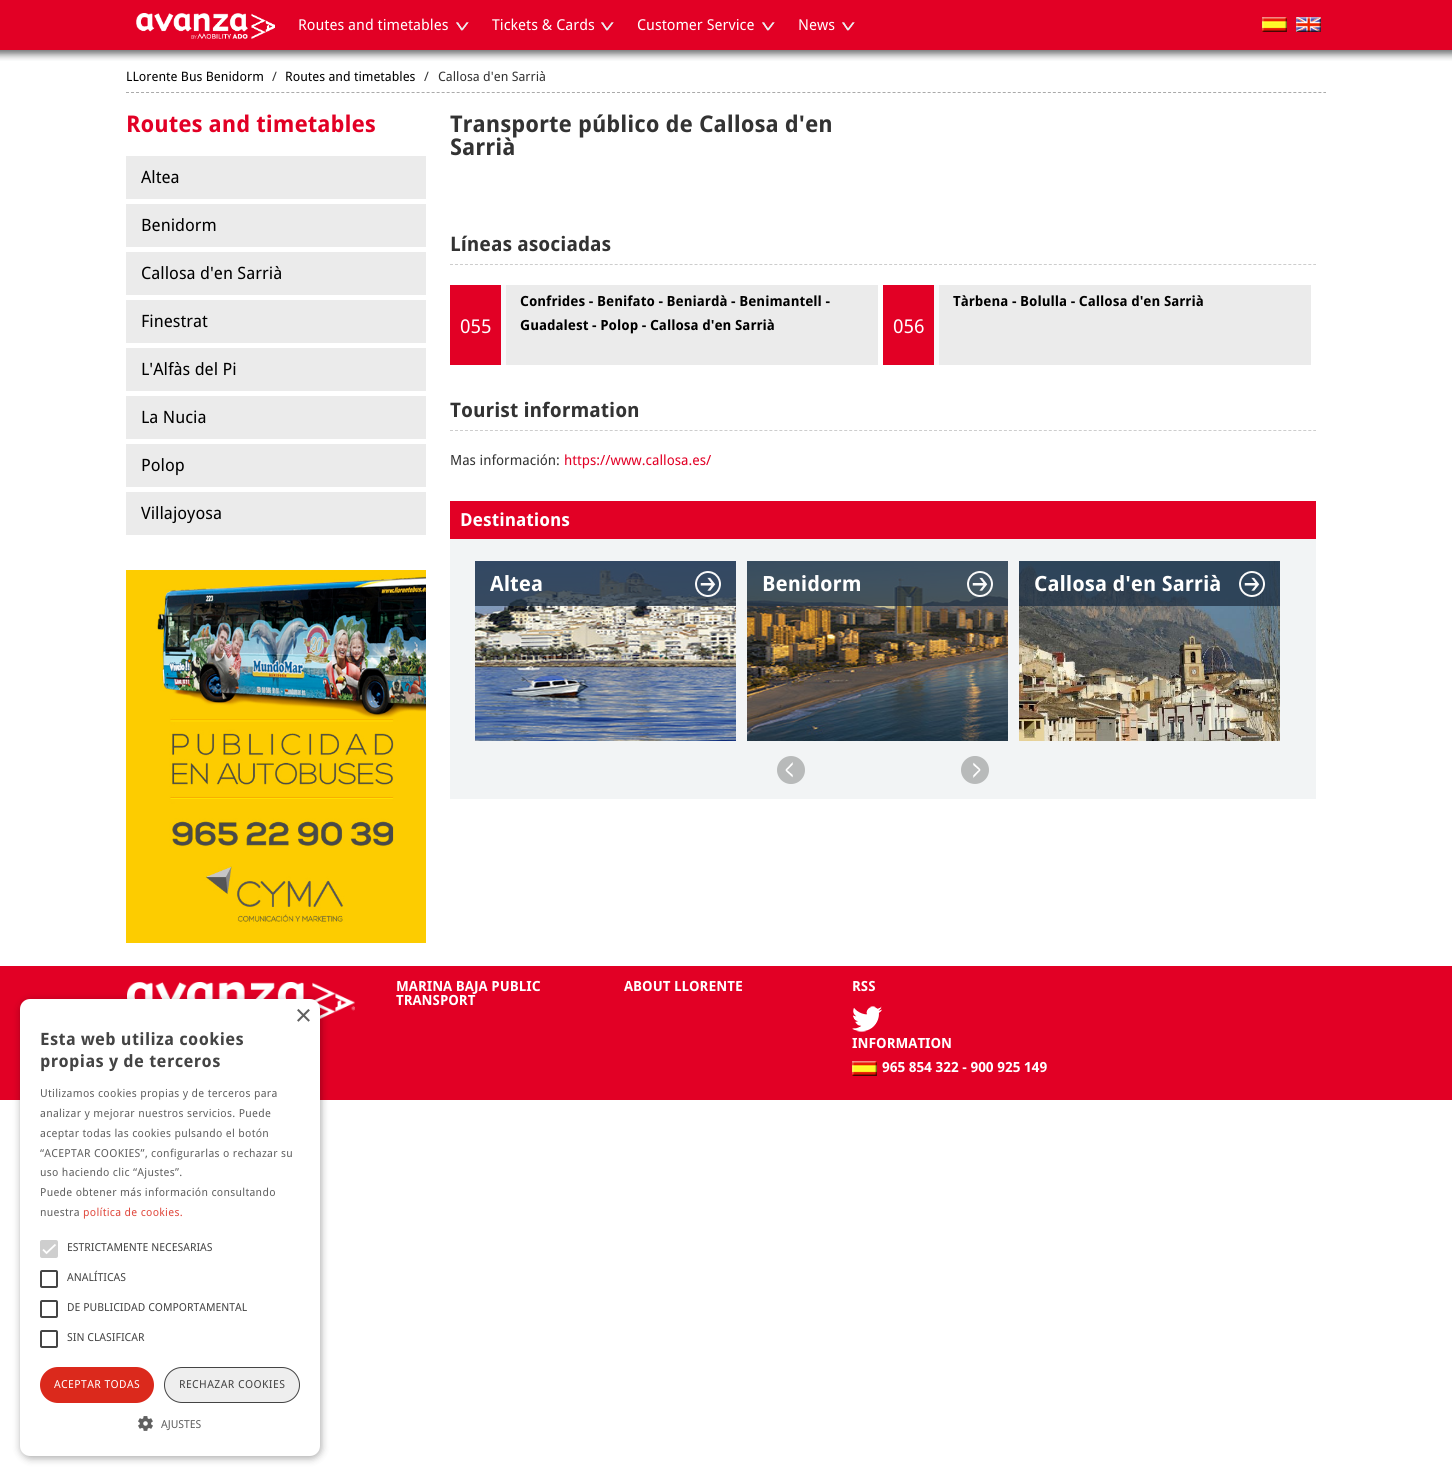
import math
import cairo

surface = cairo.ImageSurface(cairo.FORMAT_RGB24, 1452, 1476)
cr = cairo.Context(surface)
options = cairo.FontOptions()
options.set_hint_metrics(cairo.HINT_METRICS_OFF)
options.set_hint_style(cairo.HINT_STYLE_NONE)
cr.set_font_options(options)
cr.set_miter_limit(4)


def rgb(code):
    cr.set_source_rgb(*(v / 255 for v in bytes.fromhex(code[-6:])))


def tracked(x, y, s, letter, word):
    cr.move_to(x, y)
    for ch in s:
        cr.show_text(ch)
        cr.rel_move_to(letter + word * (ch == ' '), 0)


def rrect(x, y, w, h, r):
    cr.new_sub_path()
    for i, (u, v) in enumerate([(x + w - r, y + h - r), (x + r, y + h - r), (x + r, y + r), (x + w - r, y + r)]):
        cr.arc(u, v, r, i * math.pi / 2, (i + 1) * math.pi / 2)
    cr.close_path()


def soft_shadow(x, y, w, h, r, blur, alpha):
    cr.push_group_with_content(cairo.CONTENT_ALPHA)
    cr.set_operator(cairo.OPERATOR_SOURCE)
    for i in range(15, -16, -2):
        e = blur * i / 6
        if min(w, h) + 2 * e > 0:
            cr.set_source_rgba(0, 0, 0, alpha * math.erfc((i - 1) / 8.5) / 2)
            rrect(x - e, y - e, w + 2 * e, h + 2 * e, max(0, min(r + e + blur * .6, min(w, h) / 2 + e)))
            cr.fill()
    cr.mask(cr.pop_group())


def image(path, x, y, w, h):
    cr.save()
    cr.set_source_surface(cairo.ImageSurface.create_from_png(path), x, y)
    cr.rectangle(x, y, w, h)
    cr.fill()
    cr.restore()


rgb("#ffffff")
cr.paint()
image("img/1.png", 0, 0, 1452, 61)
image("img/2.png", 136, 13, 139, 26)
image("img/3.png", 456, 22, 13, 9)
image("img/3.png", 601, 22, 13, 9)
image("img/3.png", 762, 22, 13, 9)
image("img/3.png", 842, 22, 13, 9)
image("img/4.png", 1262, 17, 25, 15)
image("img/5.png", 1296, 17, 25, 15)
cr.new_path()
cr.move_to(126, 92.5)
cr.line_to(1326, 92.5)
rgb("#aaaaaa")
cr.set_line_width(1)
cr.set_dash([3, 2.01])
cr.stroke()
for x, y, w, h, color in [
    (126, 156, 300, 43, "#ebebeb"),
    (126, 204, 300, 43, "#ebebeb"),
    (126, 252, 300, 43, "#ebebeb"),
    (126, 300, 300, 43, "#ebebeb"),
    (126, 348, 300, 43, "#ebebeb"),
    (126, 396, 300, 43, "#ebebeb"),
    (126, 444, 300, 43, "#ebebeb"),
    (126, 492, 300, 43, "#ebebeb"),
]:
    rgb(color)
    cr.rectangle(x, y, w, h)
    cr.fill()
image("img/6.png", 126, 570, 300, 373)
cr.new_path()
cr.move_to(450, 264.5)
cr.line_to(1316, 264.5)
rgb("#cdcdcd")
cr.set_dash([3, 1.99])
cr.stroke()
for x, y, w, h, color in [
    (506, 285, 372, 80, "#ebebeb"),
    (450, 285, 51, 80, "#e20025"),
    (501, 285, 5, 80, "#f8f9fb"),
    (939, 285, 372, 80, "#ebebeb"),
    (883, 285, 51, 80, "#e20025"),
    (934, 285, 5, 80, "#f8f9fb"),
]:
    rgb(color)
    cr.rectangle(x, y, w, h)
    cr.fill()
cr.new_path()
cr.move_to(450, 430.5)
cr.line_to(1316, 430.5)
rgb("#cdcdcd")
cr.stroke()
rgb("#f2f4f5")
cr.rectangle(450, 539, 866, 260)
cr.fill()
rgb("#e20025")
cr.rectangle(450, 501, 866, 38)
cr.fill()
image("img/7.png", 475, 561, 261, 180)
cr.set_source_rgba(0.129, 0.2, 0.271, 0.78)
cr.rectangle(475, 561, 261, 45)
cr.fill()
image("img/8.png", 695, 571, 26, 26)
image("img/9.png", 747, 561, 261, 180)
cr.rectangle(747, 561, 261, 45)
cr.fill()
image("img/10.png", 967, 571, 26, 26)
image("img/11.png", 1019, 561, 261, 180)
cr.rectangle(1019, 561, 261, 45)
cr.fill()
image("img/12.png", 1239, 571, 26, 26)
image("img/13.png", 777, 756, 28, 28)
image("img/14.png", 961, 756, 28, 28)
rgb("#e20025")
cr.rectangle(0, 966, 1452, 134)
cr.fill()
image("img/16.png", 127, 982, 228, 37)
rgb("#000000")
soft_shadow(21, 1001, 300, 457, 10, 4, 0.35)
rgb("#ffffff")
rrect(20, 999, 300, 457, 10)
cr.fill()
rgb("#cecece")
rrect(40, 1240, 18, 18, 2)
cr.fill()
cr.new_path()
cr.move_to(43, 1249.5)
cr.line_to(46.5, 1253)
cr.line_to(55.5, 1244.5)
rgb("#ffffff")
cr.set_line_width(1.8)
cr.set_dash([])
cr.stroke()
rrect(41, 1271, 16, 16, 1)
rgb("#444444")
cr.set_line_width(2)
cr.stroke()
rrect(41, 1301, 16, 16, 1)
cr.stroke()
rrect(41, 1331, 16, 16, 1)
cr.stroke()
rgb("#db291c")
rrect(40, 1367, 114, 36, 18)
cr.fill()
rgb("#eeeeee")
rrect(164.5, 1367.5, 135, 35, 17.5)
cr.fill_preserve()
rgb("#444444")
cr.set_line_width(1)
cr.stroke()
image("img/15.png", 138, 1416, 15, 15)
image("img/17.png", 852, 1006, 30, 26)
image("img/4.png", 852, 1061, 25, 15)
cr.select_font_face("Droid Sans")
cr.set_font_size(15)
rgb("#ffffff")
for x, y, s in [
    (298, 30, "Routes and timetables"),
    (492, 30, "Tickets & Cards"),
    (637, 30, "Customer Service"),
    (798, 30, "News"),
]:
    cr.move_to(x, y)
    cr.show_text(s)
cr.set_font_size(13)
rgb("#000000")
cr.move_to(126, 81)
cr.show_text("LLorente Bus Benidorm")
rgb("#333333")
cr.move_to(272, 81)
cr.show_text("/")
rgb("#000000")
cr.move_to(285, 81)
cr.show_text("Routes and timetables")
rgb("#333333")
cr.move_to(424, 81)
cr.show_text("/")
cr.move_to(438, 81)
cr.show_text("Callosa d'en Sarrià")
cr.select_font_face("Droid Sans", cairo.FONT_SLANT_NORMAL, cairo.FONT_WEIGHT_BOLD)
cr.set_font_size(23)
rgb("#e20025")
cr.move_to(126, 132)
cr.show_text("Routes and timetables")
cr.select_font_face("Droid Sans")
cr.set_font_size(17)
rgb("#000000")
for x, y, s in [
    (141, 183, "Altea"),
    (141, 231, "Benidorm"),
    (141, 279, "Callosa d'en Sarrià"),
    (141, 327, "Finestrat"),
    (141, 375, "L'Alfàs del Pi"),
    (141, 423, "La Nucia"),
    (141, 471, "Polop"),
    (141, 519, "Villajoyosa"),
]:
    cr.move_to(x, y)
    cr.show_text(s)
cr.select_font_face("Droid Sans", cairo.FONT_SLANT_NORMAL, cairo.FONT_WEIGHT_BOLD)
cr.set_font_size(23)
rgb("#333333")
cr.move_to(450, 132)
cr.show_text("Transporte público de Callosa d'en")
cr.move_to(450, 155)
cr.show_text("Sarrià")
cr.set_font_size(20)
cr.move_to(450, 251)
cr.show_text("Líneas asociadas")
cr.set_font_size(14)
rgb("#000000")
cr.move_to(520, 306)
cr.show_text("Confrides - Benifato - Beniardà - Benimantell -")
cr.select_font_face("Droid Sans")
cr.set_font_size(19)
rgb("#ffffff")
cr.move_to(460, 333)
cr.show_text("055")
cr.select_font_face("Droid Sans", cairo.FONT_SLANT_NORMAL, cairo.FONT_WEIGHT_BOLD)
cr.set_font_size(14)
rgb("#000000")
cr.move_to(520, 330)
cr.show_text("Guadalest - Polop - Callosa d'en Sarrià")
cr.move_to(953, 306)
cr.show_text("Tàrbena - Bolulla - Callosa d'en Sarrià")
cr.select_font_face("Droid Sans")
cr.set_font_size(19)
rgb("#ffffff")
cr.move_to(893, 333)
cr.show_text("056")
cr.select_font_face("Droid Sans", cairo.FONT_SLANT_NORMAL, cairo.FONT_WEIGHT_BOLD)
cr.set_font_size(20)
rgb("#333333")
cr.move_to(450, 417)
cr.show_text("Tourist information")
cr.select_font_face("Droid Sans")
cr.set_font_size(14)
cr.move_to(450, 465)
cr.show_text("Mas información:")
rgb("#e20025")
cr.move_to(564, 465)
cr.show_text("https://www.callosa.es/")
cr.select_font_face("Droid Sans", cairo.FONT_SLANT_NORMAL, cairo.FONT_WEIGHT_BOLD)
cr.set_font_size(18)
rgb("#ffffff")
cr.move_to(460, 526)
cr.show_text("Destinations")
cr.set_font_size(21)
for x, y, s in [
    (490, 591, "Altea"),
    (762, 591, "Benidorm"),
    (1034, 591, "Callosa d'en Sarrià"),
]:
    cr.move_to(x, y)
    cr.show_text(s)
cr.select_font_face("Liberation Sans")
cr.set_font_size(29)
rgb("#606060")
cr.move_to(295, 1025)
cr.show_text("×")
cr.select_font_face("Droid Sans", cairo.FONT_SLANT_NORMAL, cairo.FONT_WEIGHT_BOLD)
cr.set_font_size(17)
rgb("#444444")
tracked(40, 1045, "Esta web utiliza cookies", 0.4, 0)
tracked(40, 1067, "propias y de terceros", 0.4, 0)
cr.select_font_face("Droid Sans")
cr.set_font_size(11)
rgb("#606060")
for x, y, s in [
    (40, 1097, "Utilizamos cookies propias y de terceros para"),
    (40, 1117, "analizar y mejorar nuestros servicios. Puede"),
    (40, 1137, "aceptar todas las cookies pulsando el botón"),
    (40, 1157, "“ACEPTAR COOKIES”, configurarlas o rechazar su"),
    (40, 1176, "uso haciendo clic “Ajustes”."),
    (40, 1196, "Puede obtener más información consultando"),
    (40, 1216, "nuestra"),
]:
    tracked(x, y, s, 0.3, 0)
rgb("#e0493e")
tracked(83, 1216, "política de cookies.", 0.3, 0)
rgb("#444444")
for x, y, s in [
    (67, 1251, "ESTRICTAMENTE NECESARIAS"),
    (67, 1281, "ANALÍTICAS"),
    (67, 1311, "DE PUBLICIDAD COMPORTAMENTAL"),
    (67, 1341, "SIN CLASIFICAR"),
]:
    cr.move_to(x, y)
    cr.show_text(s)
rgb("#ffffff")
tracked(54, 1388, "ACEPTAR TODAS", 0.4, 0)
rgb("#444444")
tracked(179, 1388, "RECHAZAR COOKIES", 0.4, 0)
rgb("#606060")
cr.move_to(161, 1428)
cr.show_text("AJUSTES")
cr.select_font_face("Droid Sans", cairo.FONT_SLANT_NORMAL, cairo.FONT_WEIGHT_BOLD)
cr.set_font_size(14)
rgb("#ffffff")
for x, y, s in [
    (396, 991, "MARINA BAJA PUBLIC"),
    (396, 1005, "TRANSPORT"),
    (624, 991, "ABOUT LLORENTE"),
    (852, 991, "RSS"),
    (852, 1048, "INFORMATION"),
    (882, 1072, "965 854 322 - 900 925 149"),
]:
    cr.move_to(x, y)
    cr.show_text(s)
surface.write_to_png("page.png")
